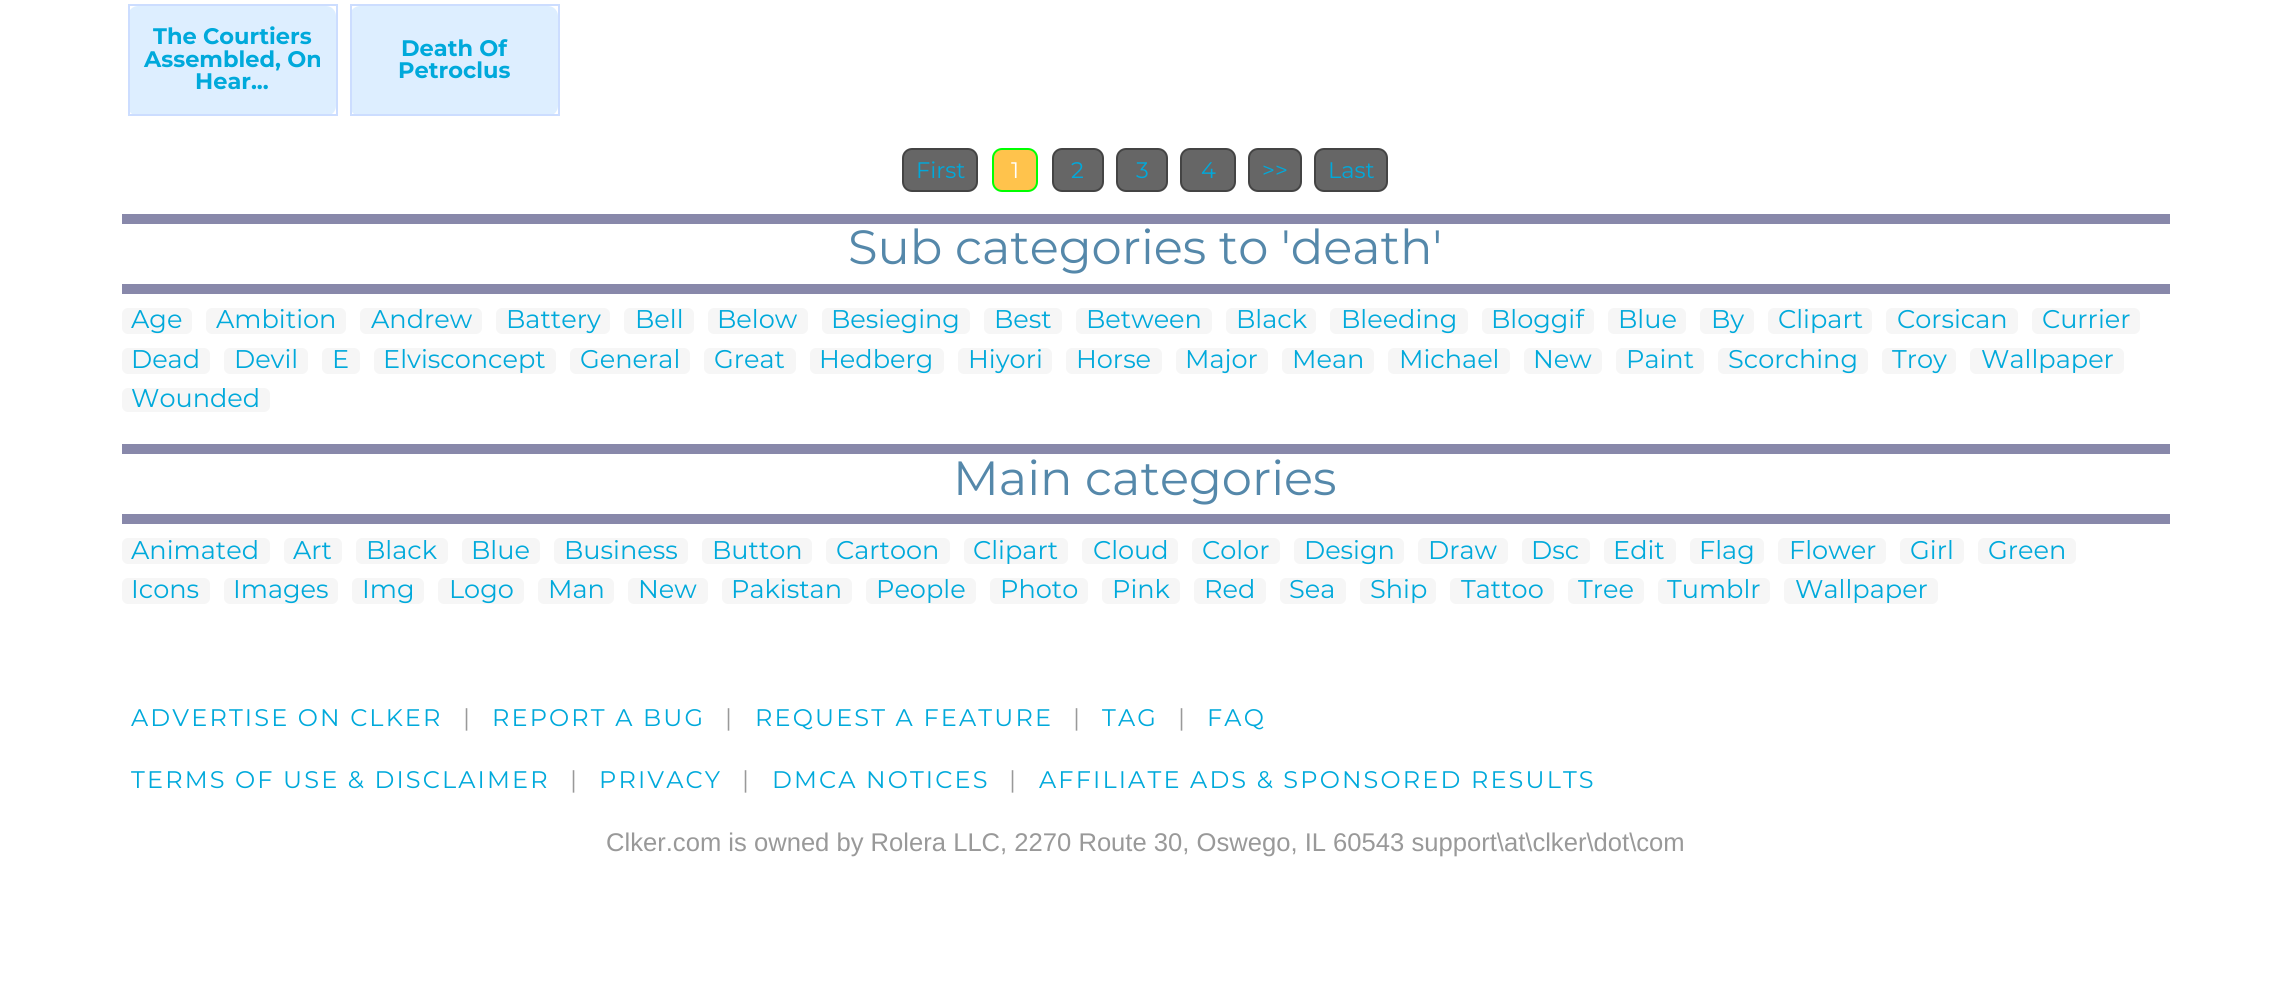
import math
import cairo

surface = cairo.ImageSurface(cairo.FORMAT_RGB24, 2290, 989)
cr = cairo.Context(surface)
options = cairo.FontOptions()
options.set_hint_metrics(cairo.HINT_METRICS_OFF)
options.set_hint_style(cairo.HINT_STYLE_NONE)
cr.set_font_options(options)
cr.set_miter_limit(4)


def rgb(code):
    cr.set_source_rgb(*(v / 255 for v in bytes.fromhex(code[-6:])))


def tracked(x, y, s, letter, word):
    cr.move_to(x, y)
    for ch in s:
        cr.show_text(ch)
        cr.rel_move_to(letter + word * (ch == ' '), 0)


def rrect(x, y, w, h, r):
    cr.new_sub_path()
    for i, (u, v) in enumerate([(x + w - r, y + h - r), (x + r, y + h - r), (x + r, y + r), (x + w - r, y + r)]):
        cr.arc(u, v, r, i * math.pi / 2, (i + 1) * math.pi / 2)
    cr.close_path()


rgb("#ffffff")
cr.paint()
rgb("#ddeeff")
rrect(128, 6, 208, 110, 10)
cr.fill()
for x, y, w, h, color in [
    (128, 4, 210, 2, "#ccddff"),
    (336, 4, 2, 112, "#ccddff"),
    (128, 114, 210, 2, "#ccddff"),
    (128, 4, 2, 112, "#ccddff"),
]:
    rgb(color)
    cr.rectangle(x, y, w, h)
    cr.fill()
rgb("#ddeeff")
rrect(350, 6, 208, 110, 10)
cr.fill()
for x, y, w, h, color in [
    (350, 4, 210, 2, "#ccddff"),
    (558, 4, 2, 112, "#ccddff"),
    (350, 114, 210, 2, "#ccddff"),
    (350, 4, 2, 112, "#ccddff"),
]:
    rgb(color)
    cr.rectangle(x, y, w, h)
    cr.fill()
rgb("#666666")
rrect(903, 149, 74, 42, 9)
cr.fill_preserve()
rgb("#444444")
cr.stroke()
rgb("#ffc34c")
rrect(993, 149, 44, 42, 9)
cr.fill_preserve()
rgb("#00ff00")
cr.stroke()
rgb("#666666")
rrect(1053, 149, 50, 42, 9)
cr.fill_preserve()
rgb("#444444")
cr.stroke()
rgb("#666666")
rrect(1117, 149, 50, 42, 9)
cr.fill_preserve()
rgb("#444444")
cr.stroke()
rgb("#666666")
rrect(1181, 149, 54, 42, 9)
cr.fill_preserve()
rgb("#444444")
cr.stroke()
rgb("#666666")
rrect(1249, 149, 52, 42, 9)
cr.fill_preserve()
rgb("#444444")
cr.stroke()
rgb("#666666")
rrect(1315, 149, 72, 42, 9)
cr.fill_preserve()
rgb("#444444")
cr.stroke()
rgb("#8888aa")
cr.rectangle(122, 214, 2048, 10)
cr.fill()
cr.rectangle(122, 284, 2048, 10)
cr.fill()
rgb("#f6f6f6")
rrect(122, 308, 70, 26, 6)
cr.fill()
rrect(206, 308, 140, 26, 6)
cr.fill()
rrect(360, 308, 122, 26, 6)
cr.fill()
rrect(496, 308, 114, 26, 6)
cr.fill()
rrect(624, 308, 70, 26, 6)
cr.fill()
rrect(708, 308, 100, 26, 6)
cr.fill()
rrect(822, 308, 148, 26, 6)
cr.fill()
rrect(984, 308, 78, 26, 6)
cr.fill()
rrect(1076, 308, 136, 26, 6)
cr.fill()
rrect(1226, 308, 90, 26, 6)
cr.fill()
rrect(1330, 308, 138, 26, 6)
cr.fill()
rrect(1482, 308, 112, 26, 6)
cr.fill()
rrect(1608, 308, 78, 26, 6)
cr.fill()
rrect(1700, 308, 54, 26, 6)
cr.fill()
rrect(1768, 308, 104, 26, 6)
cr.fill()
rrect(1886, 308, 132, 26, 6)
cr.fill()
rrect(2032, 308, 108, 26, 6)
cr.fill()
rrect(122, 348, 88, 26, 6)
cr.fill()
rrect(224, 348, 84, 26, 6)
cr.fill()
rrect(322, 348, 38, 26, 6)
cr.fill()
rrect(374, 348, 182, 26, 6)
cr.fill()
rrect(570, 348, 120, 26, 6)
cr.fill()
rrect(704, 348, 92, 26, 6)
cr.fill()
rrect(810, 348, 134, 26, 6)
cr.fill()
rrect(958, 348, 94, 26, 6)
cr.fill()
rrect(1066, 348, 96, 26, 6)
cr.fill()
rrect(1176, 348, 92, 26, 6)
cr.fill()
rrect(1282, 348, 92, 26, 6)
cr.fill()
rrect(1388, 348, 122, 26, 6)
cr.fill()
rrect(1524, 348, 78, 26, 6)
cr.fill()
rrect(1616, 348, 88, 26, 6)
cr.fill()
rrect(1718, 348, 150, 26, 6)
cr.fill()
rrect(1882, 348, 74, 26, 6)
cr.fill()
rrect(1970, 348, 154, 26, 6)
cr.fill()
rrect(122, 388, 148, 24, 6)
cr.fill()
rgb("#8888aa")
cr.rectangle(122, 444, 2048, 10)
cr.fill()
cr.rectangle(122, 514, 2048, 10)
cr.fill()
rgb("#f6f6f6")
rrect(122, 538, 148, 26, 6)
cr.fill()
rrect(284, 538, 58, 26, 6)
cr.fill()
rrect(356, 538, 92, 26, 6)
cr.fill()
rrect(462, 538, 78, 26, 6)
cr.fill()
rrect(554, 538, 134, 26, 6)
cr.fill()
rrect(702, 538, 110, 26, 6)
cr.fill()
rrect(826, 538, 124, 26, 6)
cr.fill()
rrect(964, 538, 104, 26, 6)
cr.fill()
rrect(1082, 538, 96, 26, 6)
cr.fill()
rrect(1192, 538, 88, 26, 6)
cr.fill()
rrect(1294, 538, 110, 26, 6)
cr.fill()
rrect(1418, 538, 90, 26, 6)
cr.fill()
rrect(1522, 538, 68, 26, 6)
cr.fill()
rrect(1604, 538, 72, 26, 6)
cr.fill()
rrect(1690, 538, 74, 26, 6)
cr.fill()
rrect(1778, 538, 108, 26, 6)
cr.fill()
rrect(1900, 538, 64, 26, 6)
cr.fill()
rrect(1978, 538, 98, 26, 6)
cr.fill()
rrect(122, 578, 88, 26, 6)
cr.fill()
rrect(224, 578, 114, 26, 6)
cr.fill()
rrect(352, 578, 72, 26, 6)
cr.fill()
rrect(438, 578, 86, 26, 6)
cr.fill()
rrect(538, 578, 76, 26, 6)
cr.fill()
rrect(628, 578, 80, 26, 6)
cr.fill()
rrect(722, 578, 130, 26, 6)
cr.fill()
rrect(866, 578, 110, 26, 6)
cr.fill()
rrect(990, 578, 98, 26, 6)
cr.fill()
rrect(1102, 578, 78, 26, 6)
cr.fill()
rrect(1194, 578, 72, 26, 6)
cr.fill()
rrect(1280, 578, 66, 26, 6)
cr.fill()
rrect(1360, 578, 76, 26, 6)
cr.fill()
rrect(1450, 578, 104, 26, 6)
cr.fill()
rrect(1568, 578, 76, 26, 6)
cr.fill()
rrect(1658, 578, 112, 26, 6)
cr.fill()
rrect(1784, 578, 154, 26, 6)
cr.fill()
cr.select_font_face("Montserrat", cairo.FONT_SLANT_NORMAL, cairo.FONT_WEIGHT_BOLD)
cr.set_font_size(22.5)
rgb("#00a9db")
for x, y, s in [
    (153, 44, "The Courtiers"),
    (144, 67, "Assembled, On"),
    (195, 89, "Hear..."),
    (401, 56, "Death Of"),
    (398, 78, "Petroclus"),
]:
    cr.move_to(x, y)
    cr.show_text(s)
cr.select_font_face("Montserrat")
cr.move_to(916, 178)
cr.show_text("First")
rgb("#ffffff")
cr.move_to(1011, 178)
cr.show_text("1")
rgb("#00a9db")
for x, y, s in [
    (1071, 178, "2"),
    (1136, 178, "3"),
    (1201, 178, "4"),
    (1262, 178, ">>"),
    (1328, 178, "Last"),
]:
    cr.move_to(x, y)
    cr.show_text(s)
cr.set_font_size(48)
rgb("#5588aa")
cr.move_to(848, 264)
cr.show_text("Sub categories to 'death'")
cr.set_font_size(25.6)
rgb("#00a9db")
for x, y, s in [
    (131, 328, "Age"),
    (216, 328, "Ambition"),
    (371, 328, "Andrew"),
    (506, 328, "Battery"),
    (635, 328, "Bell"),
    (717, 328, "Below"),
    (831, 328, "Besieging"),
    (994, 328, "Best"),
    (1086, 328, "Between"),
    (1236, 328, "Black"),
    (1341, 328, "Bleeding"),
    (1491, 328, "Bloggif"),
    (1618, 328, "Blue"),
    (1711, 328, "By"),
    (1778, 328, "Clipart"),
    (1897, 328, "Corsican"),
    (2042, 328, "Currier"),
    (131, 368, "Dead"),
    (234, 368, "Devil"),
    (332, 368, "E"),
    (383, 368, "Elvisconcept"),
    (580, 368, "General"),
    (714, 368, "Great"),
    (819, 368, "Hedberg"),
    (968, 368, "Hiyori"),
    (1076, 368, "Horse"),
    (1185, 368, "Major"),
    (1292, 368, "Mean"),
    (1399, 368, "Michael"),
    (1533, 368, "New"),
    (1626, 368, "Paint"),
    (1728, 368, "Scorching"),
    (1892, 368, "Troy"),
    (1981, 368, "Wallpaper"),
    (131, 407, "Wounded"),
]:
    cr.move_to(x, y)
    cr.show_text(s)
cr.set_font_size(48)
rgb("#5588aa")
cr.move_to(953, 495)
cr.show_text("Main categories")
cr.set_font_size(25.6)
rgb("#00a9db")
for x, y, s in [
    (131, 559, "Animated"),
    (293, 559, "Art"),
    (366, 559, "Black"),
    (471, 559, "Blue"),
    (564, 559, "Business"),
    (712, 559, "Button"),
    (836, 559, "Cartoon"),
    (973, 559, "Clipart"),
    (1093, 559, "Cloud"),
    (1202, 559, "Color"),
    (1304, 559, "Design"),
    (1428, 559, "Draw"),
    (1531, 559, "Dsc"),
    (1613, 559, "Edit"),
    (1699, 559, "Flag"),
    (1789, 559, "Flower"),
    (1910, 559, "Girl"),
    (1988, 559, "Green"),
    (131, 598, "Icons"),
    (233, 598, "Images"),
    (362, 598, "Img"),
    (449, 598, "Logo"),
    (548, 598, "Man"),
    (638, 598, "New"),
    (731, 598, "Pakistan"),
    (876, 598, "People"),
    (1000, 598, "Photo"),
    (1112, 598, "Pink"),
    (1204, 598, "Red"),
    (1289, 598, "Sea"),
    (1370, 598, "Ship"),
    (1461, 598, "Tattoo"),
    (1578, 598, "Tree"),
    (1667, 598, "Tumblr"),
    (1795, 598, "Wallpaper"),
]:
    cr.move_to(x, y)
    cr.show_text(s)
cr.set_font_size(24)
tracked(131, 726, "ADVERTISE ON CLKER", 2.15, 0)
rgb("#999999")
tracked(463, 726, "|", 2.15, 0)
rgb("#00a9db")
tracked(492, 726, "REPORT A BUG", 2.15, 0)
rgb("#999999")
tracked(725, 726, "|", 2.15, 0)
rgb("#00a9db")
tracked(755, 726, "REQUEST A FEATURE", 2.15, 0)
rgb("#999999")
tracked(1073, 726, "|", 2.15, 0)
rgb("#00a9db")
tracked(1102, 726, "TAG", 2.15, 0)
rgb("#999999")
tracked(1178, 726, "|", 2.15, 0)
rgb("#00a9db")
tracked(1207, 726, "FAQ", 2.15, 0)
tracked(131, 788, "TERMS OF USE & DISCLAIMER", 2.15, 0)
rgb("#999999")
tracked(570, 788, "|", 2.15, 0)
rgb("#00a9db")
tracked(599, 788, "PRIVACY", 2.15, 0)
rgb("#999999")
tracked(742, 788, "|", 2.15, 0)
rgb("#00a9db")
tracked(772, 788, "DMCA NOTICES", 2.15, 0)
rgb("#999999")
tracked(1009, 788, "|", 2.15, 0)
rgb("#00a9db")
tracked(1039, 788, "AFFILIATE ADS & SPONSORED RESULTS", 2.15, 0)
cr.select_font_face("Liberation Sans")
cr.set_font_size(25.6)
rgb("#999999")
cr.move_to(606, 851)
cr.show_text("Clker.com is owned by Rolera LLC, 2270 Route 30, Oswego, IL 60543 support\\at\\clker\\dot\\com")
surface.write_to_png("page.png")
